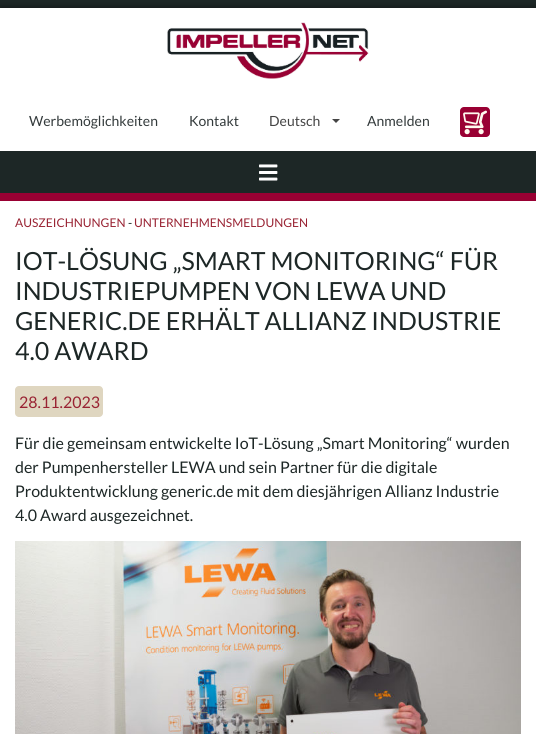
import math
import cairo

surface = cairo.ImageSurface(cairo.FORMAT_RGB24, 536, 734)
cr = cairo.Context(surface)
options = cairo.FontOptions()
options.set_hint_metrics(cairo.HINT_METRICS_OFF)
options.set_hint_style(cairo.HINT_STYLE_NONE)
cr.set_font_options(options)
cr.set_miter_limit(4)


def rgb(code):
    cr.set_source_rgb(*(v / 255 for v in bytes.fromhex(code[-6:])))


def rrect(x, y, w, h, r):
    cr.new_sub_path()
    for i, (u, v) in enumerate([(x + w - r, y + h - r), (x + r, y + h - r), (x + r, y + r), (x + w - r, y + r)]):
        cr.arc(u, v, r, i * math.pi / 2, (i + 1) * math.pi / 2)
    cr.close_path()


def soft_shadow(x, y, w, h, r, blur, alpha):
    cr.push_group_with_content(cairo.CONTENT_ALPHA)
    cr.set_operator(cairo.OPERATOR_SOURCE)
    for i in range(15, -16, -2):
        e = blur * i / 6
        if min(w, h) + 2 * e > 0:
            cr.set_source_rgba(0, 0, 0, alpha * math.erfc((i - 1) / 8.5) / 2)
            rrect(x - e, y - e, w + 2 * e, h + 2 * e, max(0, min(r + e + blur * .6, min(w, h) / 2 + e)))
            cr.fill()
    cr.mask(cr.pop_group())


def image(path, x, y, w, h):
    cr.save()
    cr.set_source_surface(cairo.ImageSurface.create_from_png(path), x, y)
    cr.rectangle(x, y, w, h)
    cr.fill()
    cr.restore()


rgb("#ffffff")
cr.paint()
rgb("#1d2726")
cr.rectangle(0, 0, 536, 8)
cr.fill()
cr.save()
cr.rectangle(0, 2, 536, 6)
cr.clip()
rgb("#000000")
soft_shadow(0, 8, 536, 143, 0, 3.5, 0.5)
cr.restore()
image("img/1.png", 167, 22, 202, 57)
rgb("#444444")
cr.new_path()
cr.move_to(332, 119)
cr.line_to(340, 119)
cr.line_to(336, 123)
cr.close_path()
cr.fill()
rgb("#990033")
rrect(460, 107, 30, 30, 4)
cr.fill()
image("img/2.png", 463, 110, 24, 25)
rgb("#1d2726")
cr.rectangle(0, 151, 536, 42)
cr.fill()
image("img/3.png", 259, 164, 19, 17)
rgb("#990033")
cr.rectangle(0, 193, 536, 8)
cr.fill()
rgb("#dfd6c0")
rrect(15, 386, 88, 31, 4)
cr.fill()
image("img/4.png", 15, 541, 506, 193)
cr.select_font_face("Lato")
cr.set_font_size(14)
rgb("#333a3b")
cr.move_to(29, 126)
cr.show_text("Werbemöglichkeiten")
cr.move_to(189, 126)
cr.show_text("Kontakt")
rgb("#444444")
cr.move_to(269, 126)
cr.show_text("Deutsch")
rgb("#333a3b")
cr.move_to(367, 126)
cr.show_text("Anmelden")
cr.set_font_size(12)
rgb("#992333")
cr.move_to(15, 227)
cr.show_text("AUSZEICHNUNGEN")
rgb("#1d2726")
cr.move_to(128, 227)
cr.show_text("-")
rgb("#992333")
cr.move_to(134, 227)
cr.show_text("UNTERNEHMENSMELDUNGEN")
cr.set_font_size(25)
rgb("#1d2726")
for x, y, s in [
    (15, 270, "IOT-LÖSUNG „SMART MONITORING“ FÜR"),
    (15, 300, "INDUSTRIEPUMPEN VON LEWA UND"),
    (15, 330, "GENERIC.DE ERHÄLT ALLIANZ INDUSTRIE"),
    (15, 360, "4.0 AWARD"),
]:
    cr.move_to(x, y)
    cr.show_text(s)
cr.set_font_size(16)
rgb("#992333")
cr.move_to(19, 408)
cr.show_text("28.11.2023")
rgb("#1d2726")
for x, y, s in [
    (15, 449, "Für die gemeinsam entwickelte IoT-Lösung „Smart Monitoring“ wurden"),
    (15, 473, "der Pumpenhersteller LEWA und sein Partner für die digitale"),
    (15, 497, "Produktentwicklung generic.de mit dem diesjährigen Allianz Industrie"),
    (15, 521, "4.0 Award ausgezeichnet."),
]:
    cr.move_to(x, y)
    cr.show_text(s)
surface.write_to_png("page.png")
